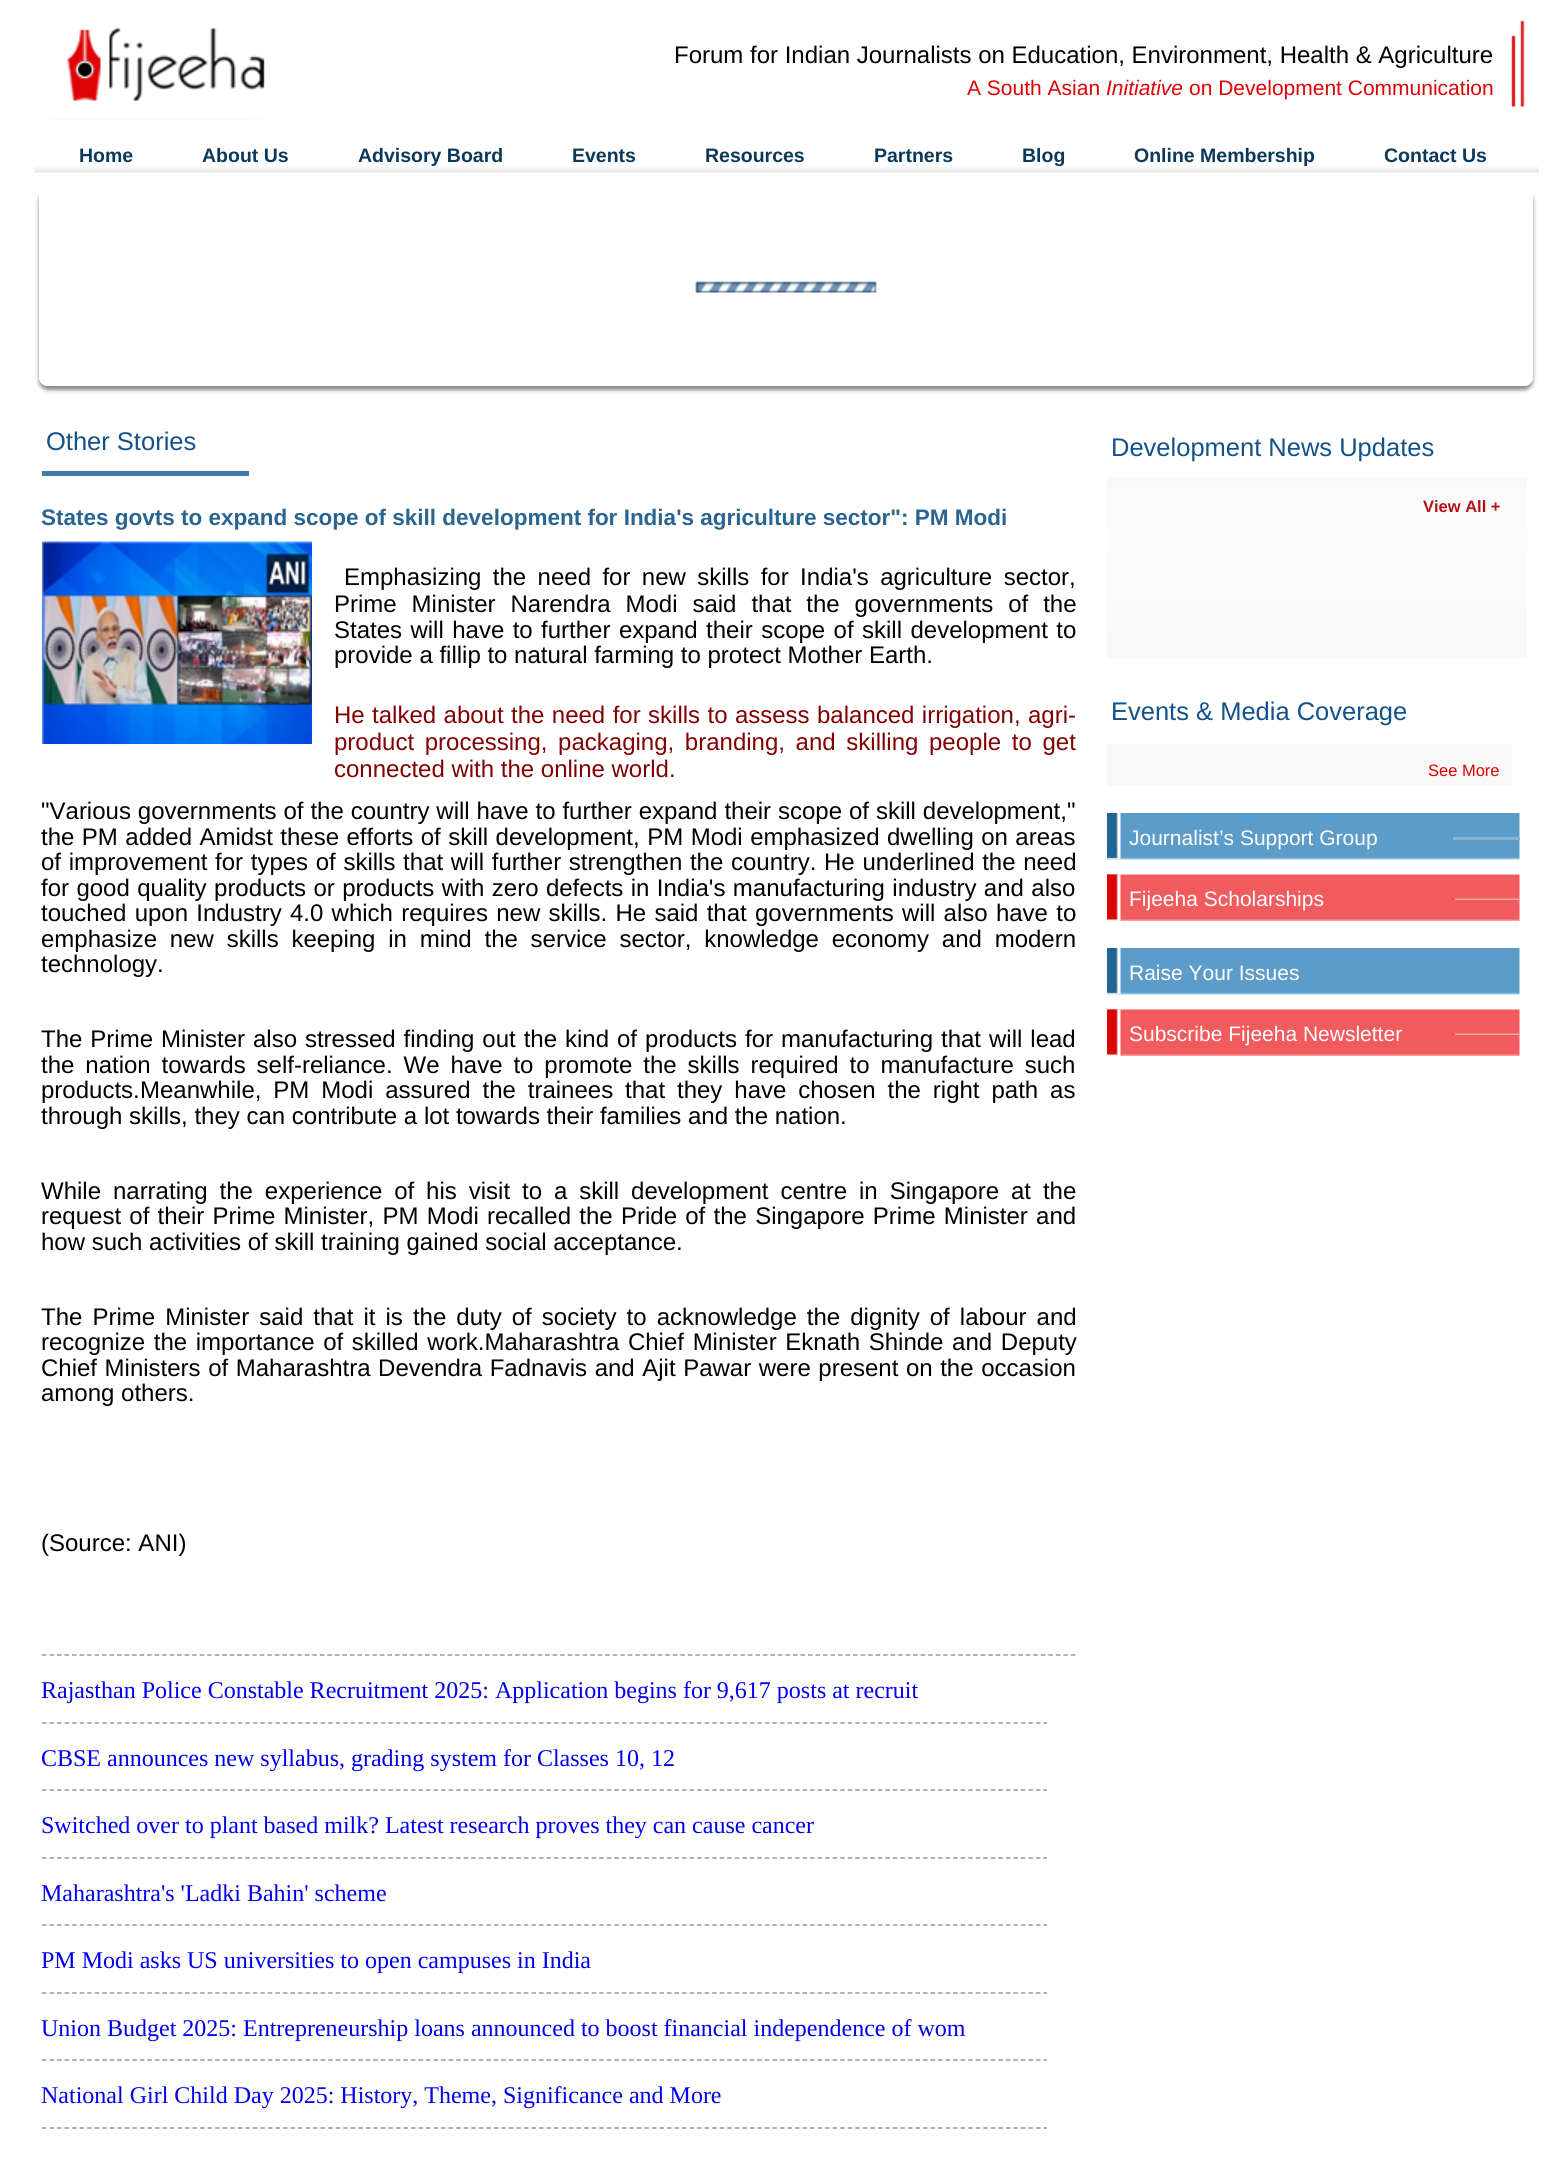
import math
import cairo

surface = cairo.ImageSurface(cairo.FORMAT_RGB24, 1552, 2159)
cr = cairo.Context(surface)
options = cairo.FontOptions()
options.set_hint_metrics(cairo.HINT_METRICS_OFF)
options.set_hint_style(cairo.HINT_STYLE_NONE)
cr.set_font_options(options)
cr.set_miter_limit(4)


def rgb(code):
    cr.set_source_rgb(*(v / 255 for v in bytes.fromhex(code[-6:])))


def tracked(x, y, s, letter, word):
    cr.move_to(x, y)
    for ch in s:
        cr.show_text(ch)
        cr.rel_move_to(letter + word * (ch == ' '), 0)


def rrect(x, y, w, h, r):
    cr.new_sub_path()
    for i, (u, v) in enumerate([(x + w - r, y + h - r), (x + r, y + h - r), (x + r, y + r), (x + w - r, y + r)]):
        cr.arc(u, v, r, i * math.pi / 2, (i + 1) * math.pi / 2)
    cr.close_path()


def soft_shadow(x, y, w, h, r, blur, alpha):
    cr.push_group_with_content(cairo.CONTENT_ALPHA)
    cr.set_operator(cairo.OPERATOR_SOURCE)
    for i in range(15, -16, -2):
        e = blur * i / 6
        if min(w, h) + 2 * e > 0:
            cr.set_source_rgba(0, 0, 0, alpha * math.erfc((i - 1) / 8.5) / 2)
            rrect(x - e, y - e, w + 2 * e, h + 2 * e, max(0, min(r + e + blur * .6, min(w, h) / 2 + e)))
            cr.fill()
    cr.mask(cr.pop_group())


def image(path, x, y, w, h):
    cr.save()
    cr.set_source_surface(cairo.ImageSurface.create_from_png(path), x, y)
    cr.rectangle(x, y, w, h)
    cr.fill()
    cr.restore()


rgb("#ffffff")
cr.paint()
image("img/1.png", 50, 118, 217, 2)
image("img/2.png", 67, 28, 198, 73)
image("img/3.png", 1510, 20, 15, 87)
image("img/4.png", 34, 166, 1505, 7)
rgb("#888888")
soft_shadow(39, 192, 1494, 198, 9, 2, 1)
rgb("#ffffff")
cr.new_path()
cr.move_to(39, 188)
cr.line_to(1533, 188)
cr.line_to(1533, 377)
cr.curve_to(1533, 382, 1529, 386, 1524, 386)
cr.line_to(48, 386)
cr.curve_to(43, 386, 39, 382, 39, 377)
cr.close_path()
cr.fill()
image("img/5.png", 695, 281, 182, 12)
cr.new_path()
cr.move_to(40, 189)
cr.line_to(1532, 189)
cr.line_to(1532, 377)
cr.curve_to(1532, 381.5, 1528.5, 385, 1524, 385)
cr.line_to(48, 385)
cr.curve_to(43.5, 385, 40, 381.5, 40, 377)
cr.close_path()
cr.stroke()
rgb("#407ca7")
cr.rectangle(42, 471, 207, 5)
cr.fill()
image("img/6.png", 42, 541, 270, 203)
cr.new_path()
cr.move_to(42, 1655)
cr.line_to(1077, 1655)
rgb("#979797")
cr.set_line_width(1.5)
cr.set_dash([4.5, 3.01])
cr.stroke()
cr.new_path()
cr.move_to(42, 1723)
cr.line_to(1047, 1723)
cr.set_dash([4.5, 3.03])
cr.stroke()
cr.new_path()
cr.move_to(42, 1790)
cr.line_to(1047, 1790)
cr.stroke()
cr.new_path()
cr.move_to(42, 1858)
cr.line_to(1047, 1858)
cr.stroke()
cr.new_path()
cr.move_to(42, 1925)
cr.line_to(1047, 1925)
cr.stroke()
cr.new_path()
cr.move_to(42, 1993)
cr.line_to(1047, 1993)
cr.stroke()
cr.new_path()
cr.move_to(42, 2060)
cr.line_to(1047, 2060)
cr.stroke()
cr.new_path()
cr.move_to(42, 2128)
cr.line_to(1047, 2128)
cr.stroke()
image("img/7.png", 1107, 477, 420, 182)
rgb("#f8f8f8")
cr.rectangle(1107, 744, 405, 42)
cr.fill()
image("img/8.png", 1107, 813, 413, 47)
rgb("#86b4d5")
cr.rectangle(1453, 837, 67, 3)
cr.fill()
image("img/9.png", 1107, 874, 413, 47)
image("img/10.png", 1452, 898, 67, 2)
image("img/8.png", 1107, 948, 413, 47)
image("img/9.png", 1107, 1009, 413, 47)
image("img/10.png", 1452, 1033, 67, 2)
cr.select_font_face("Liberation Sans")
cr.set_font_size(24)
rgb("#000000")
cr.move_to(674, 63)
cr.show_text("Forum for Indian Journalists on Education, Environment, Health & Agriculture")
cr.set_font_size(21)
rgb("#dd0305")
cr.move_to(967, 95)
cr.show_text("A South Asian")
cr.select_font_face("Liberation Sans", cairo.FONT_SLANT_ITALIC)
cr.move_to(1106, 95)
cr.show_text("Initiative")
cr.select_font_face("Liberation Sans")
cr.move_to(1189, 95)
cr.show_text("on Development Communication")
cr.select_font_face("Liberation Sans", cairo.FONT_SLANT_NORMAL, cairo.FONT_WEIGHT_BOLD)
cr.set_font_size(19.5)
rgb("#0b395a")
for x, y, s in [
    (79, 162, "Home"),
    (202, 162, "About Us"),
    (358, 162, "Advisory Board"),
    (572, 162, "Events"),
    (705, 162, "Resources"),
    (874, 162, "Partners"),
    (1022, 162, "Blog"),
    (1134, 162, "Online Membership"),
    (1384, 162, "Contact Us"),
]:
    cr.move_to(x, y)
    cr.show_text(s)
cr.select_font_face("Liberation Sans")
cr.set_font_size(25.5)
rgb("#135189")
cr.move_to(46, 450)
cr.show_text("Other Stories")
cr.select_font_face("Liberation Sans", cairo.FONT_SLANT_NORMAL, cairo.FONT_WEIGHT_BOLD)
cr.set_font_size(22.5)
rgb("#296590")
cr.move_to(41, 525)
cr.show_text("States govts to expand scope of skill development for India's agriculture sector\": PM Modi")
cr.select_font_face("Liberation Sans")
cr.set_font_size(24)
rgb("#000000")
tracked(344, 585, "Emphasizing the need for new skills for India's agriculture sector,", 0, 4.75)
tracked(334, 612, "Prime Minister Narendra Modi said that the governments of the", 0, 8.25)
tracked(334, 638, "States will have to further expand their scope of skill development to", 0, 1.75)
cr.move_to(334, 663)
cr.show_text("provide a fillip to natural farming to protect Mother Earth.")
rgb("#810102")
tracked(334, 723, "He talked about the need for skills to assess balanced irrigation, agri-", 0, 0.75)
tracked(334, 750, "product processing, packaging, branding, and skilling people to get", 0, 4)
cr.move_to(334, 777)
cr.show_text("connected with the online world.")
rgb("#000000")
tracked(41, 819, "\"Various governments of the country will have to further expand their scope of skill development,\"", 0, 0.25)
tracked(41, 845, "the PM added Amidst these efforts of skill development, PM Modi emphasized dwelling on areas", 0, 0.8)
tracked(41, 870, "of improvement for types of skills that will further strengthen the", 0, 1)
tracked(731, 870, "country. He underlined the need", 0, 1)
tracked(41, 896, "for good quality products or products with zero defects in India's manufacturing industry and also", 0, 0.75)
tracked(41, 921, "touched upon Industry 4.0 which requires new skills. He said that governments will also have to", 0, 1.6)
tracked(41, 947, "emphasize new skills keeping in mind the service sector, knowledge economy and modern", 0, 6.1)
cr.move_to(41, 972)
cr.show_text("technology.")
tracked(41, 1047, "The Prime Minister also stressed finding out the kind of products for manufacturing that will lead", 0, 1.3)
tracked(41, 1073, "the nation towards self-reliance. We have to promote the skills required to manufacture such", 0, 4.25)
cr.move_to(41, 1098)
cr.show_text("products.")
tracked(140, 1098, "Meanwhile, PM Modi assured the trainees that they have chosen the right path as", 0, 5.25)
cr.move_to(41, 1124)
cr.show_text("through skills, they can contribute a lot towards their families and the nation.")
tracked(41, 1199, "While narrating the experience of his visit to a skill development centre in Singapore at the", 0, 5.25)
tracked(41, 1224, "request of their Prime Minister, PM Modi recalled the Pride of the Singapore Prime Minister and", 0, 1.6)
cr.move_to(41, 1250)
cr.show_text("how such activities of skill training gained social acceptance.")
tracked(41, 1325, "The Prime Minister said that it is the duty of society to acknowledge the dignity of labour and", 0, 3.4)
tracked(41, 1350, "recognize the importance of skilled work.Maharashtra Chief Minister Eknath Shinde and Deputy", 0, 2)
tracked(41, 1376, "Chief Ministers of Maharashtra Devendra Fadnavis and Ajit Pawar were present on the occasion", 0, 0.9)
cr.move_to(41, 1401)
cr.show_text("among others.")
cr.move_to(41, 1551)
cr.show_text("(Source: ANI)")
cr.select_font_face("Liberation Serif")
rgb("#0000ee")
for x, y, s in [
    (41, 1698, "Rajasthan Police Constable Recruitment 2025: Application begins for 9,617 posts at recruit"),
    (41, 1766, "CBSE announces new syllabus, grading system for Classes 10, 12"),
    (41, 1833, "Switched over to plant based milk? Latest research proves they can cause cancer"),
    (41, 1901, "Maharashtra's 'Ladki Bahin' scheme"),
    (41, 1968, "PM Modi asks US universities to open campuses in India"),
    (41, 2036, "Union Budget 2025: Entrepreneurship loans announced to boost financial independence of wom"),
    (41, 2103, "National Girl Child Day 2025: History, Theme, Significance and More"),
]:
    cr.move_to(x, y)
    cr.show_text(s)
cr.select_font_face("Liberation Sans")
cr.set_font_size(25.5)
rgb("#135189")
cr.move_to(1111, 456)
cr.show_text("Development News Updates")
cr.select_font_face("Liberation Sans", cairo.FONT_SLANT_NORMAL, cairo.FONT_WEIGHT_BOLD)
cr.set_font_size(16.5)
rgb("#b31214")
cr.move_to(1423, 512)
cr.show_text("View All +")
cr.select_font_face("Liberation Sans")
cr.set_font_size(25.5)
rgb("#135189")
cr.move_to(1111, 720)
cr.show_text("Events & Media Coverage")
cr.set_font_size(16.5)
rgb("#dd0305")
cr.move_to(1428, 776)
cr.show_text("See More")
cr.set_font_size(21)
rgb("#ffffff")
for x, y, s in [
    (1129, 845, "Journalist’s Support Group"),
    (1129, 906, "Fijeeha Scholarships"),
    (1129, 980, "Raise Your Issues"),
    (1129, 1041, "Subscribe Fijeeha Newsletter"),
]:
    cr.move_to(x, y)
    cr.show_text(s)
surface.write_to_png("page.png")
